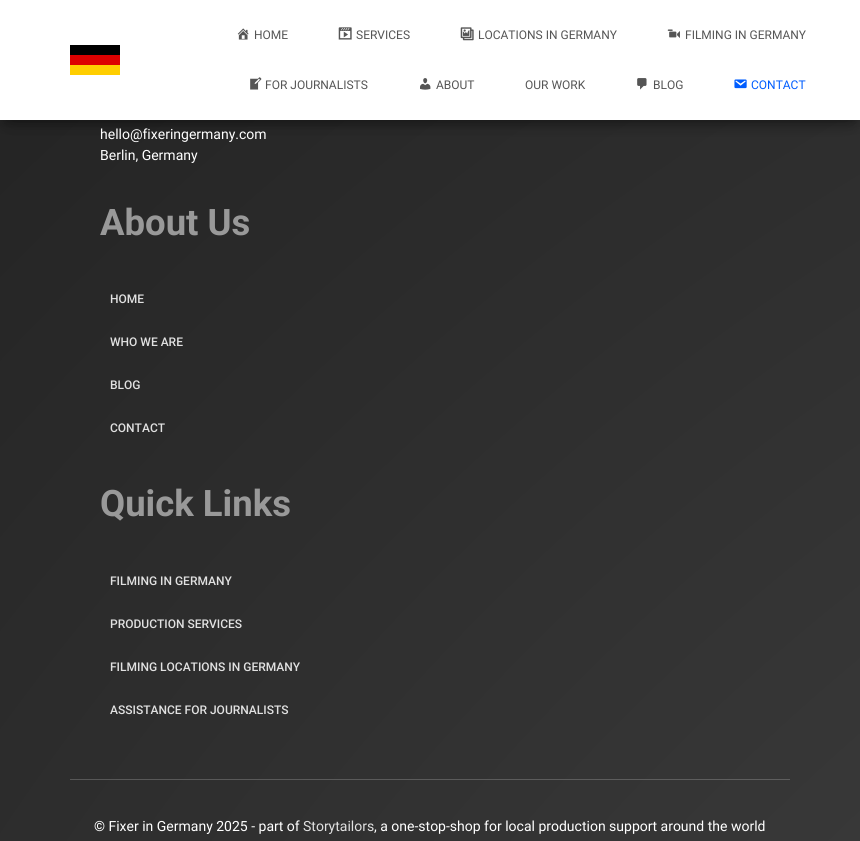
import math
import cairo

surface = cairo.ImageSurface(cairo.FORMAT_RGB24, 860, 841)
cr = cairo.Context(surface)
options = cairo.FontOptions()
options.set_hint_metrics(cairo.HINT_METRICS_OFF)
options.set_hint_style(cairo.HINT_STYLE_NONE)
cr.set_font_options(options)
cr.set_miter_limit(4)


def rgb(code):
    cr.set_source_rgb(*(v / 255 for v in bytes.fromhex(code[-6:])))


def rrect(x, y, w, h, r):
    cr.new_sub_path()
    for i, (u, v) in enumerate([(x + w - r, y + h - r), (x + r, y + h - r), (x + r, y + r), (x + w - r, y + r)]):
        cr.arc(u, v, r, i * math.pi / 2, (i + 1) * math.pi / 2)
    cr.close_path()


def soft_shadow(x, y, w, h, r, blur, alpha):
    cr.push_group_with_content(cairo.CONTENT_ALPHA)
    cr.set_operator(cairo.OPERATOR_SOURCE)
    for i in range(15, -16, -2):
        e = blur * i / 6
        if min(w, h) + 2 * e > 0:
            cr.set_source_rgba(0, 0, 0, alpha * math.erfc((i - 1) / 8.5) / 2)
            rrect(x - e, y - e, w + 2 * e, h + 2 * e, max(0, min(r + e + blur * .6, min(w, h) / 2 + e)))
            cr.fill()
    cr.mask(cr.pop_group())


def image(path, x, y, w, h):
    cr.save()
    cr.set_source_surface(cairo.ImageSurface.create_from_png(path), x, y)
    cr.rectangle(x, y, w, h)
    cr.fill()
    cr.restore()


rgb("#ffffff")
cr.paint()
gradient = cairo.RadialGradient(0, 0, 0, 0, 0, 1)
gradient.set_matrix(cairo.Matrix(1 / 3345, 0, 0, 1 / 2842, -1 * 2365 / 3345, -1 * 1998 / 2842))
gradient.add_color_stop_rgba(0, 0.345, 0.345, 0.345, 1)
gradient.add_color_stop_rgba(1, 0.137, 0.137, 0.137, 1)
cr.set_source(gradient)
cr.rectangle(0, 120, 860, 721)
cr.fill()
rgb("#000000")
soft_shadow(5, 13, 850, 110, 0, 5, 0.2)
soft_shadow(0, 3, 860, 120, 0, 10, 0.12)
soft_shadow(12, 22, 836, 96, 0, 10, 0.42)
for x, y, w, h, color in [
    (0, 0, 860, 120, "#ffffff"),
    (70, 45, 50, 10, "#000000"),
    (70, 55, 50, 10, "#dd0000"),
    (70, 65, 50, 10, "#ffce00"),
]:
    rgb(color)
    cr.rectangle(x, y, w, h)
    cr.fill()
image("img/1.png", 237, 28, 12, 12)
image("img/2.png", 338, 27, 14, 13)
image("img/3.png", 460, 27, 14, 14)
image("img/4.png", 667, 29, 13, 9)
image("img/5.png", 250, 77, 12, 13)
image("img/6.png", 420, 78, 11, 12)
image("img/7.png", 637, 78, 10, 12)
image("img/8.png", 734, 79, 13, 10)
gradient = cairo.RadialGradient(0, 0, 0, 0, 0, 1)
gradient.set_matrix(cairo.Matrix(1 / 3345, 0, 0, 1 / 2842, -1 * 2365 / 3345, -1 * 1998 / 2842))
gradient.add_color_stop_rgba(0, 0.475, 0.475, 0.475, 1)
gradient.add_color_stop_rgba(1, 0.31, 0.31, 0.31, 1)
cr.set_source(gradient)
cr.rectangle(70, 779, 720, 1)
cr.fill()
cr.select_font_face("Roboto")
cr.set_font_size(12)
rgb("#555555")
for x, y, s in [
    (254, 39, "HOME"),
    (356, 39, "SERVICES"),
    (478, 39, "LOCATIONS IN GERMANY"),
    (685, 39, "FILMING IN GERMANY"),
    (265, 89, "FOR JOURNALISTS"),
    (436, 89, "ABOUT"),
    (525, 89, "OUR WORK"),
    (653, 89, "BLOG"),
]:
    cr.move_to(x, y)
    cr.show_text(s)
rgb("#005dff")
cr.move_to(751, 89)
cr.show_text("CONTACT")
cr.set_font_size(14)
rgb("#ffffff")
cr.move_to(100, 139)
cr.show_text("hello@fixeringermany.com")
cr.move_to(100, 160)
cr.show_text("Berlin, Germany")
cr.select_font_face("Roboto", cairo.FONT_SLANT_NORMAL, cairo.FONT_WEIGHT_BOLD)
cr.set_font_size(36.5)
rgb("#999999")
cr.move_to(100, 235)
cr.show_text("About Us")
cr.select_font_face("Roboto Medium")
cr.set_font_size(12)
rgb("#e1e1e1")
for x, y, s in [
    (110, 303, "HOME"),
    (110, 346, "WHO WE ARE"),
    (110, 389, "BLOG"),
    (110, 432, "CONTACT"),
]:
    cr.move_to(x, y)
    cr.show_text(s)
cr.select_font_face("Roboto", cairo.FONT_SLANT_NORMAL, cairo.FONT_WEIGHT_BOLD)
cr.set_font_size(36.5)
rgb("#999999")
cr.move_to(100, 516)
cr.show_text("Quick Links")
cr.select_font_face("Roboto Medium")
cr.set_font_size(12)
rgb("#e1e1e1")
for x, y, s in [
    (110, 585, "FILMING IN GERMANY"),
    (110, 628, "PRODUCTION SERVICES"),
    (110, 671, "FILMING LOCATIONS IN GERMANY"),
    (110, 714, "ASSISTANCE FOR JOURNALISTS"),
]:
    cr.move_to(x, y)
    cr.show_text(s)
cr.select_font_face("Roboto")
cr.set_font_size(14)
rgb("#ffffff")
cr.move_to(94, 831)
cr.show_text("© Fixer in Germany 2025 - part of")
rgb("#e1e1e1")
cr.move_to(303, 831)
cr.show_text("Storytailors")
rgb("#ffffff")
cr.move_to(374, 831)
cr.show_text(", a one-stop-shop for local production support around the world")
surface.write_to_png("page.png")
